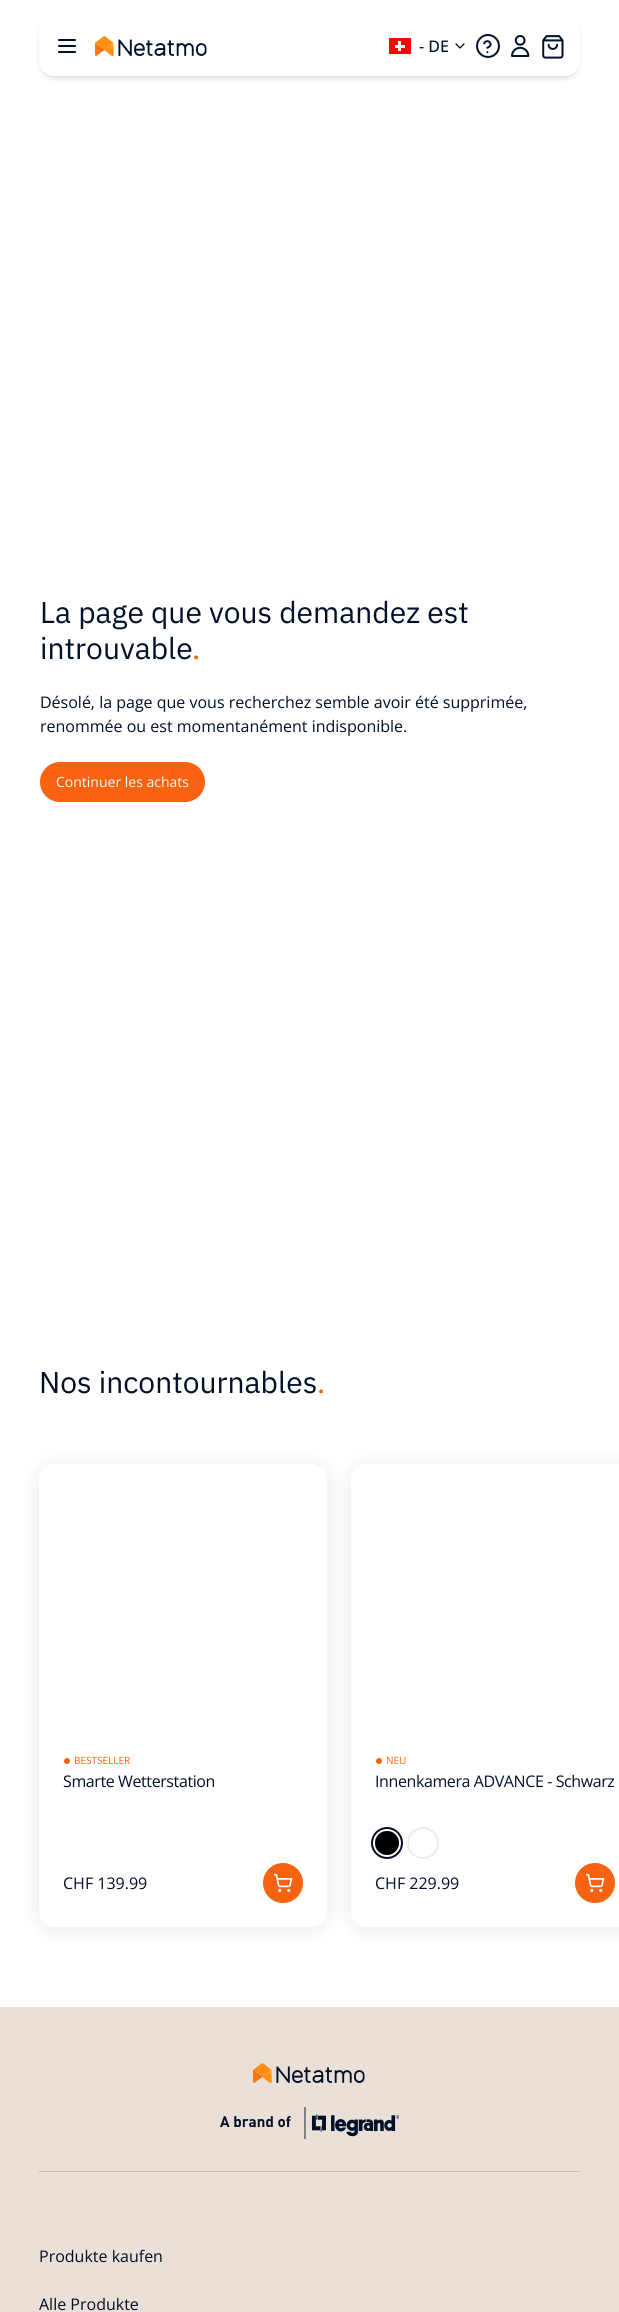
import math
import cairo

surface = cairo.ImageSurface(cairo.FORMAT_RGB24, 619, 2312)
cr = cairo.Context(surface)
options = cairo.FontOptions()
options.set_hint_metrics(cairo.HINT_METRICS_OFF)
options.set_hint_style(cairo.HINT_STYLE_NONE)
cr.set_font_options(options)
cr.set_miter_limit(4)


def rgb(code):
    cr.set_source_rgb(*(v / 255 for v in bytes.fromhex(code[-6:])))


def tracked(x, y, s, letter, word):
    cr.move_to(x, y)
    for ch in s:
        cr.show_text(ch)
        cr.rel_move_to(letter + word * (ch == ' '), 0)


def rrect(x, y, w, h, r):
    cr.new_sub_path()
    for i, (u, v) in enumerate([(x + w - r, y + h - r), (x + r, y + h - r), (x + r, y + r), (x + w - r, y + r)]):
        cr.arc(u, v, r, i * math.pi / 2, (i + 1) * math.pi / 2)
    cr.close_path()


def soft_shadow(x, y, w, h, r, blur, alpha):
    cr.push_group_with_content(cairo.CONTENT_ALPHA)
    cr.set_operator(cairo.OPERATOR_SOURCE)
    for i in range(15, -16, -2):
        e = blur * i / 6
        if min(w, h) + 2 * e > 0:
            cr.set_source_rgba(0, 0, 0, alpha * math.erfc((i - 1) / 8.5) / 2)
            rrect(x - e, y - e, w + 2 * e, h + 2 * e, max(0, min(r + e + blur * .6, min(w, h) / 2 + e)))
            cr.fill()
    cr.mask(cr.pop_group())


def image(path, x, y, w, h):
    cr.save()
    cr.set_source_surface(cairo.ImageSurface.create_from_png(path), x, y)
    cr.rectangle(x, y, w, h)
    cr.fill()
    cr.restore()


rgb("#ffffff")
cr.paint()
cr.save()
cr.set_fill_rule(cairo.FILL_RULE_EVEN_ODD)
cr.new_path()
cr.move_to(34, 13)
cr.line_to(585, 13)
cr.line_to(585, 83)
cr.line_to(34, 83)
cr.close_path()
cr.move_to(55, 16)
cr.line_to(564, 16)
cr.curve_to(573, 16, 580, 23, 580, 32)
cr.line_to(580, 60)
cr.curve_to(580, 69, 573, 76, 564, 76)
cr.line_to(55, 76)
cr.curve_to(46, 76, 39, 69, 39, 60)
cr.line_to(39, 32)
cr.curve_to(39, 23, 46, 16, 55, 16)
cr.close_path()
cr.clip()
rgb("#000000")
soft_shadow(41, 20, 537, 56, 14, 2, 0.1)
cr.restore()
cr.save()
cr.set_fill_rule(cairo.FILL_RULE_EVEN_ODD)
cr.new_path()
cr.move_to(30, 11)
cr.line_to(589, 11)
cr.line_to(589, 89)
cr.line_to(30, 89)
cr.close_path()
cr.move_to(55, 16)
cr.line_to(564, 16)
cr.curve_to(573, 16, 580, 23, 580, 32)
cr.line_to(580, 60)
cr.curve_to(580, 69, 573, 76, 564, 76)
cr.line_to(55, 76)
cr.curve_to(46, 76, 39, 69, 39, 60)
cr.line_to(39, 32)
cr.curve_to(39, 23, 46, 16, 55, 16)
cr.close_path()
cr.clip()
rgb("#000000")
soft_shadow(40, 21, 539, 58, 15, 3, 0.1)
cr.restore()
cr.set_source_rgba(1, 1, 1, 0.6)
rrect(39, 16, 541, 60, 16)
cr.fill()
cr.new_path()
cr.move_to(75, 40)
cr.line_to(59, 40)
cr.move_to(75, 46)
cr.line_to(59, 46)
cr.move_to(75, 52)
cr.line_to(59, 52)
rgb("#001029")
cr.set_line_cap(cairo.LINE_CAP_ROUND)
cr.set_line_join(cairo.LINE_JOIN_ROUND)
cr.stroke()
image("img/1.png", 95, 36, 112, 20)
for x, y, w, h, color in [
    (389, 38, 22, 16, "#ff0000"),
    (395, 45, 10, 3, "#ffffff"),
    (398, 41, 3, 10, "#ffffff"),
]:
    rgb(color)
    cr.rectangle(x, y, w, h)
    cr.fill()
cr.new_path()
cr.move_to(456, 44)
cr.line_to(460, 48)
cr.line_to(464, 44)
rgb("#001029")
cr.set_line_width(1.3)
cr.stroke()
image("img/2.png", 476, 34, 24, 24)
image("img/3.png", 511, 35, 19, 22)
image("img/4.png", 542, 35, 22, 24)
rgb("#f96210")
rrect(40, 762, 165, 40, 20)
cr.fill()
rgb("#001029")
soft_shadow(39, 1466, 288, 463, 16, 10, 0.1)
rgb("#ffffff")
rrect(39, 1464, 288, 463, 16)
cr.fill()
rgb("#f96210")
cr.arc(67, 1761, 3, 0, 2 * math.pi)
cr.fill()
cr.arc(283, 1883, 20, 0, 2 * math.pi)
cr.fill()
image("img/5.png", 273, 1873, 20, 20)
rgb("#001029")
soft_shadow(351, 1466, 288, 463, 16, 10, 0.1)
rgb("#ffffff")
cr.new_path()
cr.move_to(367, 1464)
cr.line_to(619, 1464)
cr.line_to(619, 1927)
cr.line_to(367, 1927)
cr.curve_to(358, 1927, 351, 1920, 351, 1911)
cr.line_to(351, 1480)
cr.curve_to(351, 1471, 358, 1464, 367, 1464)
cr.close_path()
cr.fill()
rgb("#f96210")
cr.arc(379, 1761, 3, 0, 2 * math.pi)
cr.fill()
cr.arc(387, 1843, 14, 0, 2 * math.pi)
rgb("#001029")
cr.set_line_width(4)
cr.set_line_cap(cairo.LINE_CAP_BUTT)
cr.set_line_join(cairo.LINE_JOIN_MITER)
cr.stroke()
cr.arc(387, 1843, 13, 0, 2 * math.pi)
rgb("#ffffff")
cr.set_line_width(2)
cr.stroke()
rgb("#000000")
cr.arc(387, 1843, 12, 0, 2 * math.pi)
cr.fill()
cr.arc(423, 1843, 14, 0, 2 * math.pi)
rgb("#eaedf1")
cr.set_line_width(4)
cr.stroke()
cr.arc(423, 1843, 13, 0, 2 * math.pi)
rgb("#ffffff")
cr.set_line_width(2)
cr.stroke()
cr.arc(423, 1843, 12, 0, 2 * math.pi)
cr.fill()
rgb("#f96210")
cr.arc(595, 1883, 20, 0, 2 * math.pi)
cr.fill()
image("img/5.png", 585, 1873, 20, 20)
rgb("#eae0d7")
cr.rectangle(0, 2007, 619, 305)
cr.fill()
rgb("#c7c1bd")
cr.rectangle(39, 2171, 541, 1)
cr.fill()
image("img/6.png", 253, 2063, 112, 20)
image("img/7.png", 220, 2107, 179, 32)
cr.select_font_face("Open Sans Medium")
cr.set_font_size(16)
rgb("#001029")
cr.move_to(419, 52)
cr.show_text("- DE")
cr.select_font_face("IBM Plex Sans")
cr.set_font_size(30)
cr.move_to(40, 623)
cr.show_text("La page que vous demandez est")
cr.move_to(40, 659)
cr.show_text("introuvable")
rgb("#f96210")
cr.move_to(192, 659)
cr.show_text(".")
cr.select_font_face("Open Sans")
cr.set_font_size(16)
rgb("#001029")
cr.move_to(40, 708)
cr.show_text("Désolé, la page que vous recherchez semble avoir été supprimée,")
cr.move_to(40, 732)
cr.show_text("renommée ou est momentanément indisponible.")
cr.set_font_size(14)
rgb("#ffffff")
cr.move_to(56, 787)
cr.show_text("Continuer les achats")
cr.select_font_face("IBM Plex Sans")
cr.set_font_size(30)
rgb("#001029")
cr.move_to(39, 1393)
cr.show_text("Nos incontournables")
rgb("#f96210")
cr.move_to(317, 1393)
cr.show_text(".")
cr.select_font_face("Open Sans")
cr.set_font_size(10)
cr.move_to(74, 1764)
cr.show_text("BESTSELLER")
cr.set_font_size(16)
rgb("#001029")
tracked(63, 1787, "Smarte Wetterstation", -0.4, 0)
cr.move_to(63, 1889)
cr.show_text("CHF 139.99")
cr.set_font_size(10)
rgb("#f96210")
cr.move_to(386, 1764)
cr.show_text("NEU")
cr.set_font_size(16)
rgb("#001029")
tracked(375, 1787, "Innenkamera ADVANCE - Schwarz", -0.4, 0)
for x, y, s in [
    (375, 1889, "CHF 229.99"),
    (39, 2262, "Produkte kaufen"),
    (39, 2310, "Alle Produkte"),
]:
    cr.move_to(x, y)
    cr.show_text(s)
surface.write_to_png("page.png")
